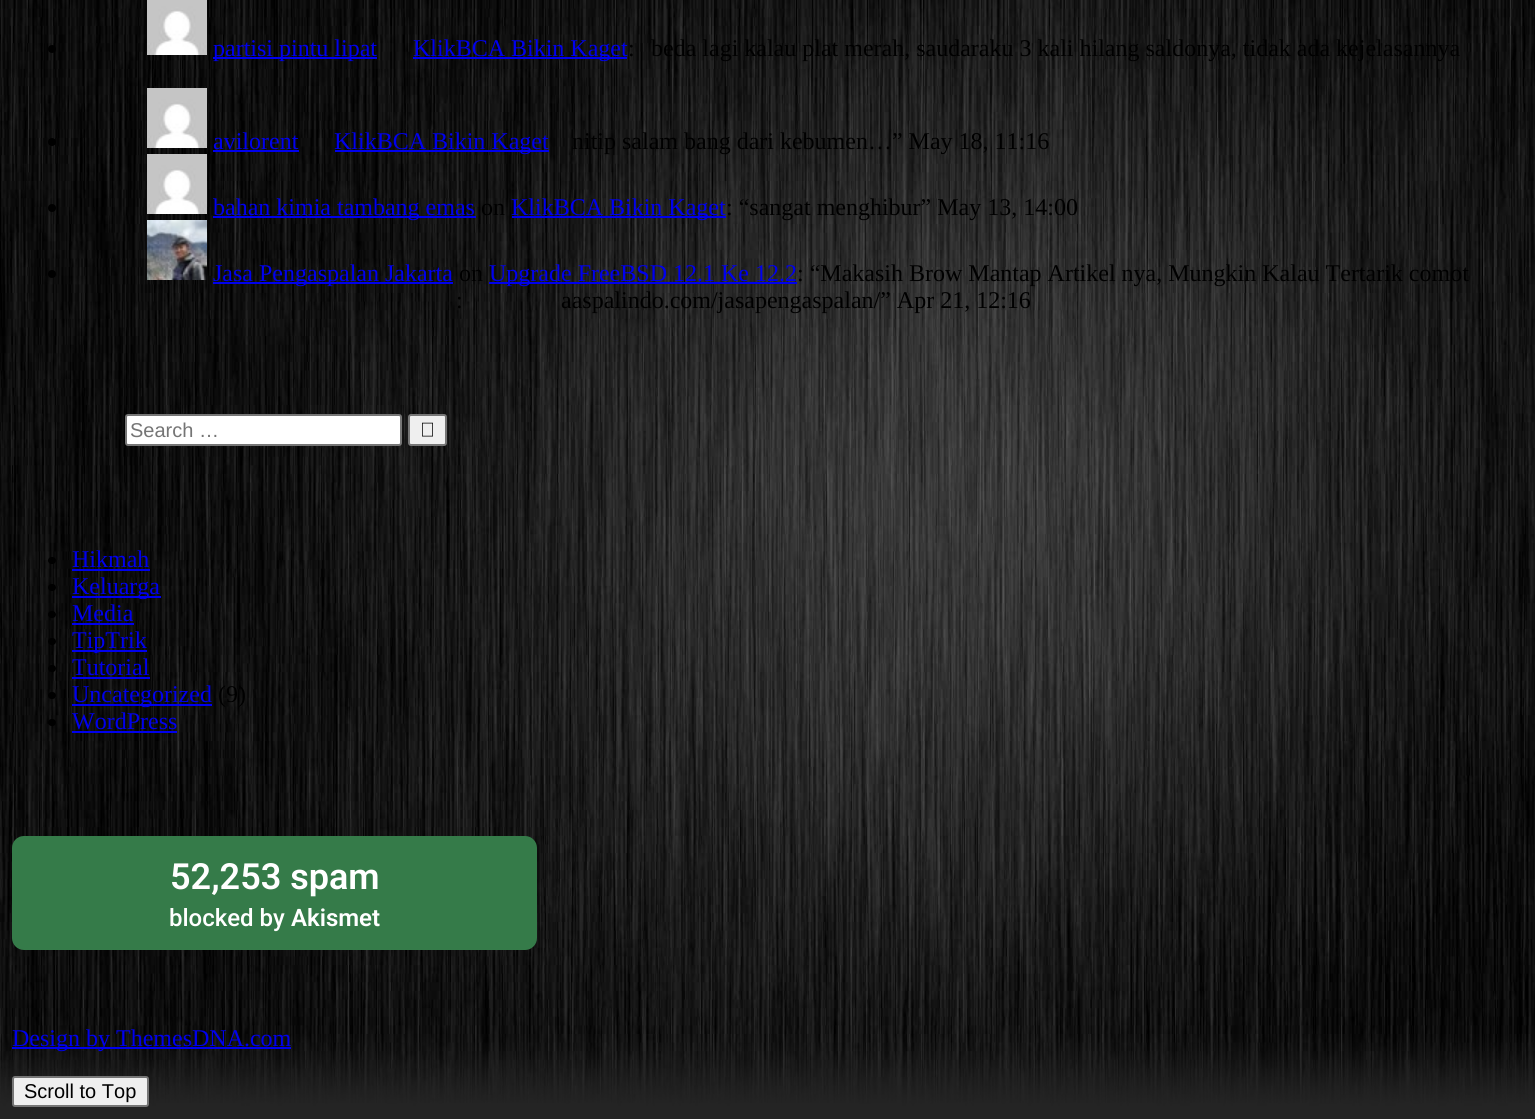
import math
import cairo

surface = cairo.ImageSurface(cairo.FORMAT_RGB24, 1535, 1119)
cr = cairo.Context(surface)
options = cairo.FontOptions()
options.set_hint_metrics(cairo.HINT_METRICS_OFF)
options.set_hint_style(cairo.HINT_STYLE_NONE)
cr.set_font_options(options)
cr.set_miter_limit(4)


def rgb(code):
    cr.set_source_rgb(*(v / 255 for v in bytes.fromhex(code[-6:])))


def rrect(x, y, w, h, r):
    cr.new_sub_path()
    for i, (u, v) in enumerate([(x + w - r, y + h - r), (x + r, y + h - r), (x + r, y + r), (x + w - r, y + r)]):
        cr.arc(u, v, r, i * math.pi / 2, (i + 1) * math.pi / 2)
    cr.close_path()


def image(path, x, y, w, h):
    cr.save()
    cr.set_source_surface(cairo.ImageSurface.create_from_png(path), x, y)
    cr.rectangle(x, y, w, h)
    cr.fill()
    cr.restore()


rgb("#ffffff")
cr.paint()
image("img/1.png", 0, 0, 1535, 1119)
rgb("#000000")
cr.arc(52, 49, 4, 0, 2 * math.pi)
cr.fill()
image("img/2.png", 147, 0, 60, 55)
rgb("#0000ee")
cr.rectangle(213, 57, 164, 2)
cr.fill()
cr.rectangle(413, 57, 214, 2)
cr.fill()
rgb("#000000")
cr.arc(52, 142, 4, 0, 2 * math.pi)
cr.fill()
image("img/3.png", 147, 88, 60, 60)
rgb("#0000ee")
cr.rectangle(213, 150, 86, 2)
cr.fill()
cr.rectangle(335, 150, 214, 2)
cr.fill()
rgb("#000000")
cr.arc(52, 208, 4, 0, 2 * math.pi)
cr.fill()
image("img/3.png", 147, 154, 60, 60)
rgb("#0000ee")
cr.rectangle(213, 216, 263, 2)
cr.fill()
cr.rectangle(512, 216, 214, 2)
cr.fill()
rgb("#000000")
cr.arc(52, 274, 4, 0, 2 * math.pi)
cr.fill()
image("img/4.png", 147, 220, 60, 60)
rgb("#0000ee")
cr.rectangle(213, 282, 240, 2)
cr.fill()
cr.rectangle(489, 282, 308, 2)
cr.fill()
rgb("#ffffff")
rrect(126, 415, 275, 30, 2)
cr.fill_preserve()
rgb("#767676")
cr.stroke()
rgb("#efefef")
rrect(409, 415, 37, 30, 2)
cr.fill_preserve()
rgb("#767676")
cr.stroke()
image("img/5.png", 422, 422, 11, 15)
rgb("#000000")
rrect(48, 557, 8, 7, 3.5)
cr.fill()
rgb("#0000ee")
cr.rectangle(72, 569, 78, 2)
cr.fill()
rgb("#000000")
rrect(48, 584, 8, 7, 3.5)
cr.fill()
rgb("#0000ee")
cr.rectangle(72, 596, 89, 2)
cr.fill()
rgb("#000000")
rrect(48, 611, 8, 7, 3.5)
cr.fill()
rgb("#0000ee")
cr.rectangle(72, 623, 62, 2)
cr.fill()
rgb("#000000")
rrect(48, 638, 8, 7, 3.5)
cr.fill()
rgb("#0000ee")
cr.rectangle(72, 650, 75, 2)
cr.fill()
rgb("#000000")
rrect(48, 665, 8, 7, 3.5)
cr.fill()
rgb("#0000ee")
cr.rectangle(72, 677, 78, 2)
cr.fill()
rgb("#000000")
rrect(48, 692, 8, 7, 3.5)
cr.fill()
rgb("#0000ee")
cr.rectangle(72, 704, 140, 2)
cr.fill()
rgb("#000000")
rrect(48, 719, 8, 7, 3.5)
cr.fill()
rgb("#0000ee")
cr.rectangle(72, 731, 105, 2)
cr.fill()
rgb("#357b49")
rrect(12, 836, 525, 114, 12)
cr.fill()
rgb("#0000ee")
cr.rectangle(12, 1047, 279, 2)
cr.fill()
rgb("#efefef")
rrect(13, 1077, 135, 29, 2)
cr.fill_preserve()
rgb("#767676")
cr.stroke()
cr.select_font_face("Liberation Serif")
cr.set_font_size(24)
rgb("#0000ee")
cr.move_to(213, 56)
cr.show_text("partisi pintu lipat")
cr.move_to(413, 56)
cr.show_text("KlikBCA Bikin Kaget")
rgb("#000000")
cr.move_to(628, 56)
cr.show_text(":")
cr.move_to(651, 56)
cr.show_text("beda lagi kalau plat merah, saudaraku 3 kali hilang saldonya, tidak ada kejelasannya")
rgb("#0000ee")
cr.move_to(213, 149)
cr.show_text("avilorent")
cr.move_to(334, 149)
cr.show_text("KlikBCA Bikin Kaget")
rgb("#000000")
cr.move_to(572, 149)
cr.show_text("nitip salam bang dari kebumen…” May 18, 11:16")
rgb("#0000ee")
cr.move_to(213, 215)
cr.show_text("bahan kimia tambang emas")
rgb("#000000")
cr.move_to(481, 215)
cr.show_text("on")
rgb("#0000ee")
cr.move_to(511, 215)
cr.show_text("KlikBCA Bikin Kaget")
rgb("#000000")
cr.move_to(726, 215)
cr.show_text(": “sangat menghibur” May 13, 14:00")
rgb("#0000ee")
cr.move_to(213, 281)
cr.show_text("Jasa Pengaspalan Jakarta")
rgb("#000000")
cr.move_to(459, 281)
cr.show_text("on")
rgb("#0000ee")
cr.move_to(489, 281)
cr.show_text("Upgrade FreeBSD 12.1 Ke 12.2")
rgb("#000000")
for x, y, s in [
    (797, 281, ": “Makasih Brow Mantap Artikel nya, Mungkin Kalau Tertarik comot"),
    (456, 308, ":"),
    (561, 308, "aaspalindo.com/jasapengaspalan/” Apr 21, 12:16"),
]:
    cr.move_to(x, y)
    cr.show_text(s)
cr.select_font_face("Liberation Sans")
cr.set_font_size(20)
rgb("#757575")
cr.move_to(130, 437)
cr.show_text("Search …")
cr.select_font_face("Liberation Serif")
cr.set_font_size(24)
rgb("#0000ee")
for x, y, s in [
    (72, 567, "Hikmah"),
    (72, 594, "Keluarga"),
    (72, 621, "Media"),
    (72, 648, "TipTrik"),
    (72, 675, "Tutorial"),
    (72, 702, "Uncategorized"),
]:
    cr.move_to(x, y)
    cr.show_text(s)
rgb("#000000")
cr.move_to(218, 702)
cr.show_text("(9)")
rgb("#0000ee")
cr.move_to(72, 729)
cr.show_text("WordPress")
cr.select_font_face("Roboto SemiBold")
cr.set_font_size(36)
rgb("#ffffff")
cr.move_to(170, 889)
cr.show_text("52,253 spam")
cr.select_font_face("Roboto Medium")
cr.set_font_size(24)
cr.move_to(169, 926)
cr.show_text("blocked by")
cr.select_font_face("Roboto SemiBold")
cr.move_to(291, 926)
cr.show_text("Akismet")
cr.select_font_face("Liberation Serif")
rgb("#0000ee")
cr.move_to(12, 1046)
cr.show_text("Design by ThemesDNA.com")
cr.select_font_face("Liberation Sans")
cr.set_font_size(20)
rgb("#000000")
cr.move_to(24, 1098)
cr.show_text("Scroll to Top")
surface.write_to_png("page.png")
